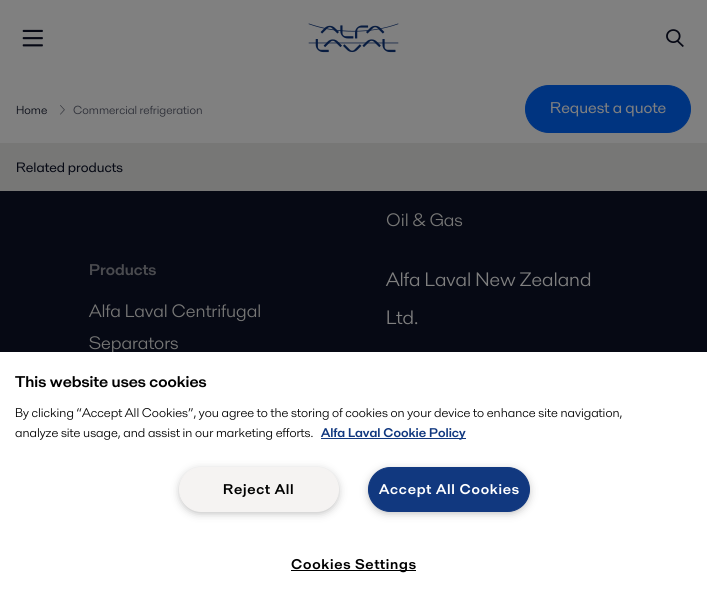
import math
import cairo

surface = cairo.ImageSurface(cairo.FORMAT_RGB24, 707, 612)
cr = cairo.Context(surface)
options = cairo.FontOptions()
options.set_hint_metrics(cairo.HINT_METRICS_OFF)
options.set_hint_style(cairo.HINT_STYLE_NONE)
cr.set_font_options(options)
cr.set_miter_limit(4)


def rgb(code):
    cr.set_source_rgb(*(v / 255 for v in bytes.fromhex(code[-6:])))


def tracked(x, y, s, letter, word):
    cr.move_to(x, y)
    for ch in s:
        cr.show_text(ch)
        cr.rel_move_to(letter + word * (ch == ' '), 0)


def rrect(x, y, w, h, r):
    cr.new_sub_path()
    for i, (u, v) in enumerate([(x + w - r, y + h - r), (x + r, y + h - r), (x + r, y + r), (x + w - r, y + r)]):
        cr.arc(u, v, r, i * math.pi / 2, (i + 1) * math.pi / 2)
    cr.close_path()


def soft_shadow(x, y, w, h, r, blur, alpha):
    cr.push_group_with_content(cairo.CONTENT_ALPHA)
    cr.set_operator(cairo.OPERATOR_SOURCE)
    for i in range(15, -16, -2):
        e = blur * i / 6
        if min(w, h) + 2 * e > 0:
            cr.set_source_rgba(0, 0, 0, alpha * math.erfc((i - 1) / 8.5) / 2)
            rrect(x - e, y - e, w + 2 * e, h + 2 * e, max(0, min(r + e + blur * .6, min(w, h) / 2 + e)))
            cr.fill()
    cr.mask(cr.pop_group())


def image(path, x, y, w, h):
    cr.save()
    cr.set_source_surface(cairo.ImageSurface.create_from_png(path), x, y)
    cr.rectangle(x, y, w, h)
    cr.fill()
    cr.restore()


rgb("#060914")
cr.paint()
rgb("#808080")
cr.rectangle(0, 0, 707, 143)
cr.fill()
image("img/1.png", 22, 29, 21, 18)
image("img/2.png", 308, 23, 91, 30)
image("img/3.png", 666, 29, 18, 18)
image("img/4.png", 60, 105, 5, 10)
rgb("#003480")
rrect(525.5, 85.5, 165, 47, 23.5)
cr.fill_preserve()
cr.set_line_width(1)
cr.stroke()
rgb("#777776")
cr.rectangle(0, 143, 707, 48)
cr.fill()
cr.select_font_face("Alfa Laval")
cr.set_font_size(12)
rgb("#060914")
cr.move_to(16, 114)
cr.show_text("Home")
rgb("#2a2c35")
cr.move_to(73, 114)
cr.show_text("Commercial refrigeration")
cr.select_font_face("Alfa Laval Medium")
cr.set_font_size(16)
rgb("#808080")
cr.move_to(550, 113)
cr.show_text("Request a quote")
cr.set_font_size(14)
rgb("#060914")
cr.move_to(16, 172)
cr.show_text("Related products")
cr.select_font_face("Alfa Laval")
cr.set_font_size(18.5)
rgb("#777776")
cr.move_to(386, 226)
cr.show_text("Oil & Gas")
cr.select_font_face("Alfa Laval", cairo.FONT_SLANT_NORMAL, cairo.FONT_WEIGHT_BOLD)
cr.set_font_size(16)
rgb("#4a4b4f")
cr.move_to(89, 275)
cr.show_text("Products")
cr.select_font_face("Alfa Laval")
cr.set_font_size(18.5)
rgb("#777776")
cr.move_to(89, 317)
cr.show_text("Alfa Laval Centrifugal")
cr.move_to(89, 349)
cr.show_text("Separators")
cr.set_font_size(20)
rgb("#808080")
cr.move_to(386, 286)
cr.show_text("Alfa Laval New Zealand")
cr.move_to(386, 324)
cr.show_text("Ltd.")
rgb("#ffffff")
cr.rectangle(0, 352, 707, 260)
cr.fill()
cr.select_font_face("Alfa Laval", cairo.FONT_SLANT_NORMAL, cairo.FONT_WEIGHT_BOLD)
cr.set_font_size(16)
rgb("#000000")
cr.move_to(15, 387)
cr.show_text("This website uses cookies")
cr.select_font_face("Alfa Laval")
cr.set_font_size(13)
cr.move_to(15, 417)
cr.show_text("By clicking “Accept All Cookies”, you agree to the storing of cookies on your device to enhance site navigation,")
cr.move_to(15, 437)
cr.show_text("analyze site usage, and assist in our marketing efforts.")
rgb("#11387f")
cr.rectangle(321, 438, 145, 1)
cr.fill()
cr.select_font_face("Alfa Laval", cairo.FONT_SLANT_NORMAL, cairo.FONT_WEIGHT_BOLD)
cr.move_to(321, 437)
cr.show_text("Alfa Laval Cookie Policy")
rgb("#999999")
soft_shadow(182, 472, 154, 39, 19.5, 5, 1)
rgb("#f5f3f2")
rrect(179.5, 467.5, 159, 44, 22)
cr.fill_preserve()
cr.stroke()
cr.set_font_size(14.5)
rgb("#000000")
tracked(223, 494, "Reject All", 0.75, 0)
rgb("#999999")
soft_shadow(371, 472, 156, 39, 19.5, 5, 1)
rgb("#11387f")
rrect(368.5, 467.5, 161, 44, 22)
cr.fill_preserve()
cr.stroke()
rgb("#ffffff")
tracked(379, 494, "Accept All Cookies", 0.75, 0)
rgb("#000000")
cr.rectangle(291, 570, 125, 1)
cr.fill()
tracked(291, 569, "Cookies Settings", 0.75, 0)
surface.write_to_png("page.png")
